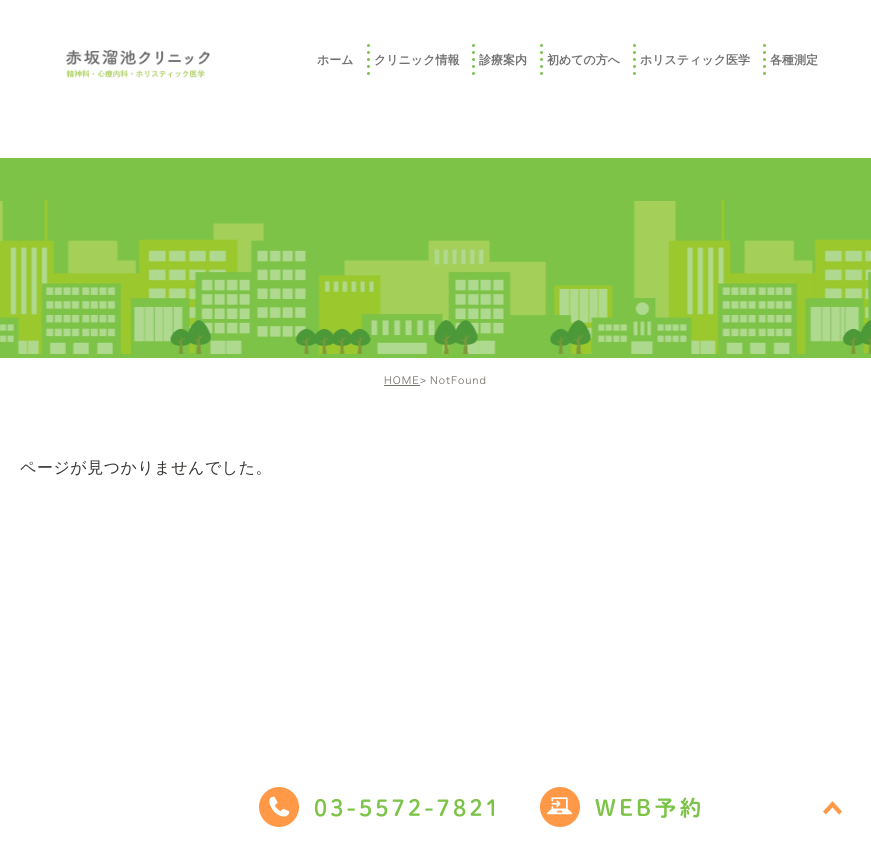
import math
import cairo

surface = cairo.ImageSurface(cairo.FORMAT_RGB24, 871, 855)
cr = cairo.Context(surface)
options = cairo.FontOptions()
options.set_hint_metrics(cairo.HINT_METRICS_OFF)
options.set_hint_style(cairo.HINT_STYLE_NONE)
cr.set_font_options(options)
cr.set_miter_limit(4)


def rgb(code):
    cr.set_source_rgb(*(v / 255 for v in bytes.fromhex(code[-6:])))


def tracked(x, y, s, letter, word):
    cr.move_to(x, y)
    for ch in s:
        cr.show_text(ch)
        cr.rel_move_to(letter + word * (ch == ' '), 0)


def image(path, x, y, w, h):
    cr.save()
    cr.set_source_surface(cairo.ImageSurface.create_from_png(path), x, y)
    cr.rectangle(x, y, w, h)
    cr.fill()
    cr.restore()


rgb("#ffffff")
cr.paint()
image("img/1.png", 66, 49, 144, 29)
image("img/2.png", 367, 44, 3, 31)
image("img/2.png", 472, 44, 3, 31)
image("img/2.png", 540, 44, 3, 31)
image("img/2.png", 633, 44, 3, 31)
image("img/2.png", 763, 44, 3, 31)
image("img/3.png", 0, 158, 871, 200)
rgb("#77716c")
cr.rectangle(384, 385, 36, 1)
cr.fill()
image("img/4.png", 259, 787, 235, 40)
image("img/5.png", 540, 787, 160, 40)
image("img/6.png", 823, 801, 19, 14)
cr.select_font_face("WenQuanYi Zen Hei", cairo.FONT_SLANT_NORMAL, cairo.FONT_WEIGHT_BOLD)
cr.set_font_size(12)
rgb("#707070")
for x, y, s in [
    (317, 64, "ホーム"),
    (374, 64, "クリニック情報"),
    (479, 64, "診療案内"),
    (547, 64, "初めての方へ"),
    (640, 64, "ホリスティック医学"),
    (770, 64, "各種測定"),
]:
    cr.move_to(x, y)
    cr.show_text(s)
cr.select_font_face("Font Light")
cr.set_font_size(10)
rgb("#77716c")
tracked(384, 384, "HOME", 1, 0)
cr.select_font_face("Liberation Sans")
tracked(420, 384, ">", 1, 0)
cr.select_font_face("Font Light")
tracked(430, 384, "NotFound", 1, 0)
cr.select_font_face("WenQuanYi Zen Hei Medium")
cr.set_font_size(16)
rgb("#373431")
tracked(20, 473, "ページが見つかりませんでした。", 0.5, 0)
surface.write_to_png("page.png")
